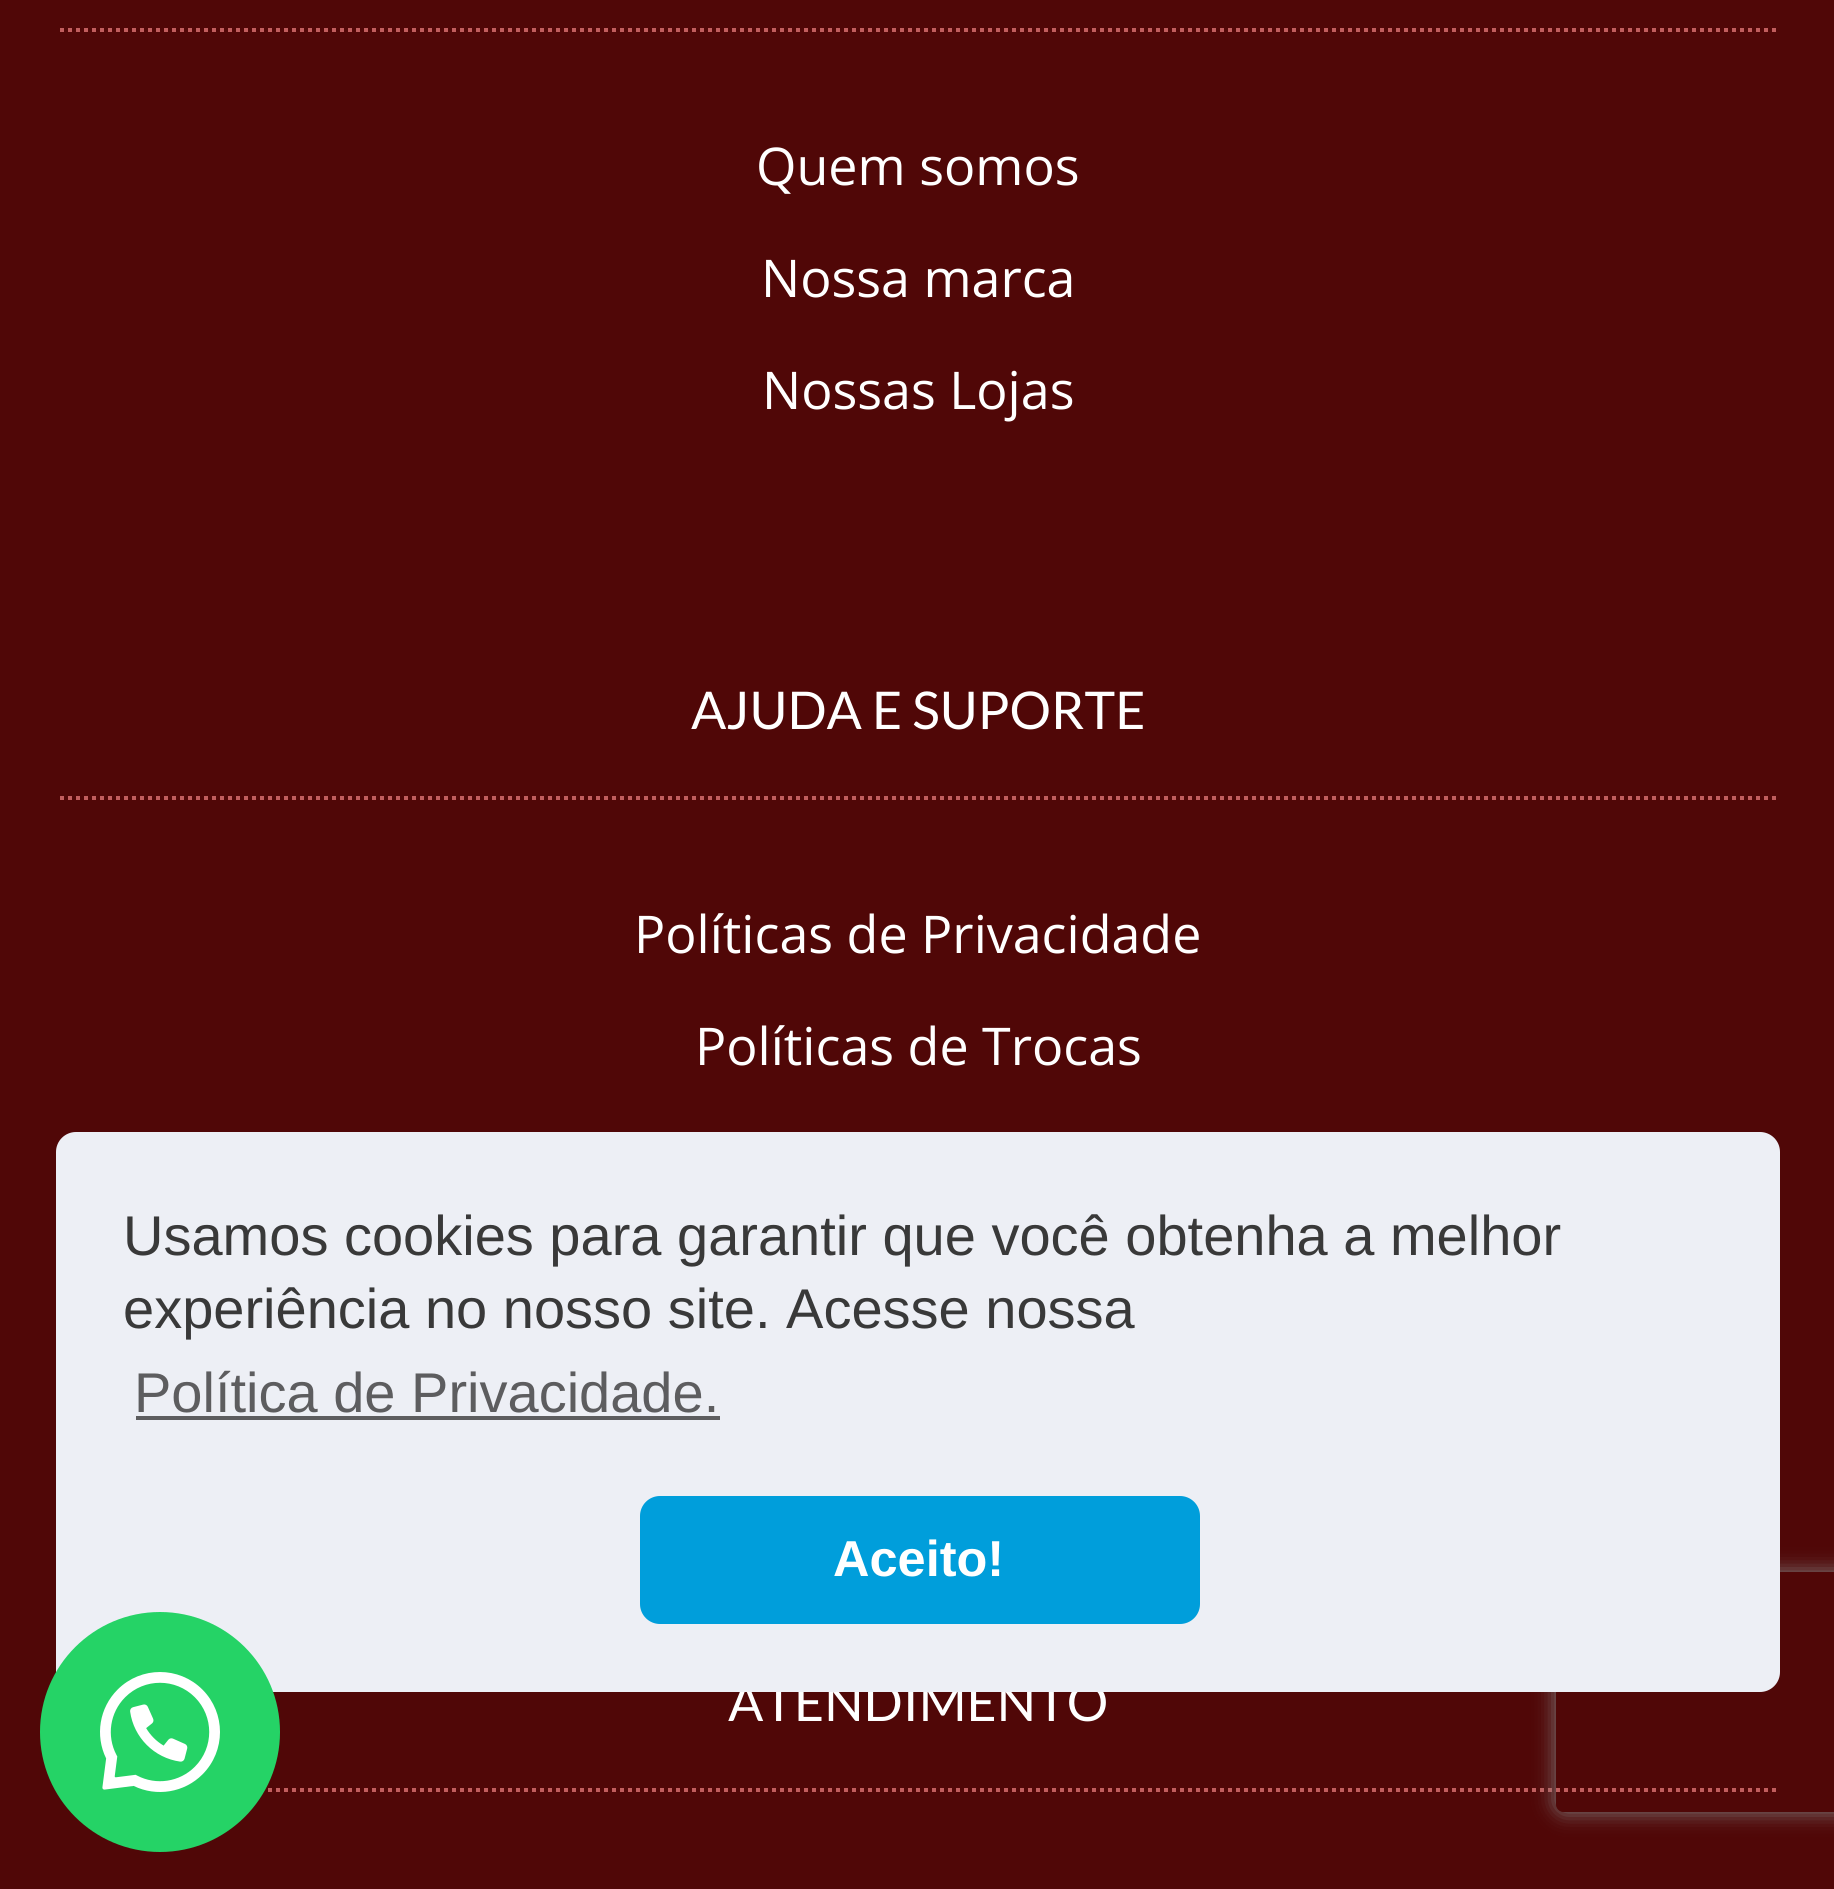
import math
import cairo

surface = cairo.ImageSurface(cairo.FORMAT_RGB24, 1834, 1889)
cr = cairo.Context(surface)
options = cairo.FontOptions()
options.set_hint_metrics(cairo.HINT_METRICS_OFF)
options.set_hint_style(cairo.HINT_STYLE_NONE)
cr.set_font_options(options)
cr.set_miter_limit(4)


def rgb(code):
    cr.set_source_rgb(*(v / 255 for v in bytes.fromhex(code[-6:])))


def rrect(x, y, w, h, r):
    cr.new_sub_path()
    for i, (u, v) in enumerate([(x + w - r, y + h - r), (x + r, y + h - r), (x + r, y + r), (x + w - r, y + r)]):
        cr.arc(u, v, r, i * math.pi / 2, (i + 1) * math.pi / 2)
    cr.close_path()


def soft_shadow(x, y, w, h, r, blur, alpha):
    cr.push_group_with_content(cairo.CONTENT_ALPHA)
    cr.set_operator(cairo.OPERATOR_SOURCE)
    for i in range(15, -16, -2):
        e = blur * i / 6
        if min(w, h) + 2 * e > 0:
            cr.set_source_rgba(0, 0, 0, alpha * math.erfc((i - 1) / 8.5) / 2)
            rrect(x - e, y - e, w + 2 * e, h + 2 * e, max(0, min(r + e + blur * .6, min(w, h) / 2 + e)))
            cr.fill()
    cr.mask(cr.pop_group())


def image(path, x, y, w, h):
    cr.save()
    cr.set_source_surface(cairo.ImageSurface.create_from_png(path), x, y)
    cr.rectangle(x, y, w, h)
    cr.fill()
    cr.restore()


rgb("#500707")
cr.paint()
cr.new_path()
cr.move_to(60, 30)
cr.line_to(1776, 30)
rgb("#c15e5e")
cr.set_line_width(4)
cr.set_dash([4, 4])
cr.stroke()
cr.new_path()
cr.move_to(60, 798)
cr.line_to(1776, 798)
cr.stroke()
cr.new_path()
cr.move_to(60, 1790)
cr.line_to(1776, 1790)
cr.stroke()
cr.save()
cr.set_fill_rule(cairo.FILL_RULE_EVEN_ODD)
cr.new_path()
cr.move_to(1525, 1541)
cr.line_to(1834, 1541)
cr.line_to(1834, 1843)
cr.line_to(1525, 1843)
cr.close_path()
cr.move_to(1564, 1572)
cr.line_to(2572, 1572)
cr.curve_to(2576.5, 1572, 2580, 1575.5, 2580, 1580)
cr.line_to(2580, 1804)
cr.curve_to(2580, 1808.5, 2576.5, 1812, 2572, 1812)
cr.line_to(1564, 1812)
cr.curve_to(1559.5, 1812, 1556, 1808.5, 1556, 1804)
cr.line_to(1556, 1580)
cr.curve_to(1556, 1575.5, 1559.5, 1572, 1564, 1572)
cr.close_path()
cr.clip()
rgb("#808080")
soft_shadow(1556, 1572, 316, 240, 8, 10, 1)
cr.restore()
cr.select_font_face("Open Sans")
cr.set_font_size(52)
rgb("#ffffff")
for x, y, s in [
    (756, 185, "Quem somos"),
    (761, 297, "Nossa marca"),
    (762, 409, "Nossas Lojas"),
]:
    cr.move_to(x, y)
    cr.show_text(s)
cr.select_font_face("Lato")
cr.move_to(691, 729)
cr.show_text("AJUDA E SUPORTE")
cr.select_font_face("Open Sans")
cr.move_to(634, 953)
cr.show_text("Políticas de Privacidade")
cr.move_to(695, 1065)
cr.show_text("Políticas de Trocas")
cr.select_font_face("Lato")
cr.move_to(728, 1721)
cr.show_text("ATENDIMENTO")
rgb("#edeff5")
rrect(56, 1132, 1724, 560, 20)
cr.fill()
cr.select_font_face("Liberation Sans")
cr.set_font_size(56)
rgb("#393939")
cr.move_to(123, 1255)
cr.show_text("Usamos cookies para garantir que você obtenha a melhor")
cr.move_to(123, 1328)
cr.show_text("experiência no nosso site. Acesse nossa")
rgb("#5d5d5f")
cr.move_to(134, 1412)
cr.show_text("Política de Privacidade.")
cr.rectangle(136, 1416, 584, 4)
cr.fill()
rgb("#009edb")
rrect(640, 1496, 560, 128, 20)
cr.fill()
cr.select_font_face("Liberation Sans", cairo.FONT_SLANT_NORMAL, cairo.FONT_WEIGHT_BOLD)
cr.set_font_size(50.5)
rgb("#ffffff")
cr.move_to(833, 1576)
cr.show_text("Aceito!")
rgb("#25d366")
cr.new_path()
cr.arc(160, 1732, 120, 0, 2 * math.pi)
cr.fill()
image("img/1.png", 100, 1672, 120, 120)
surface.write_to_png("page.png")
